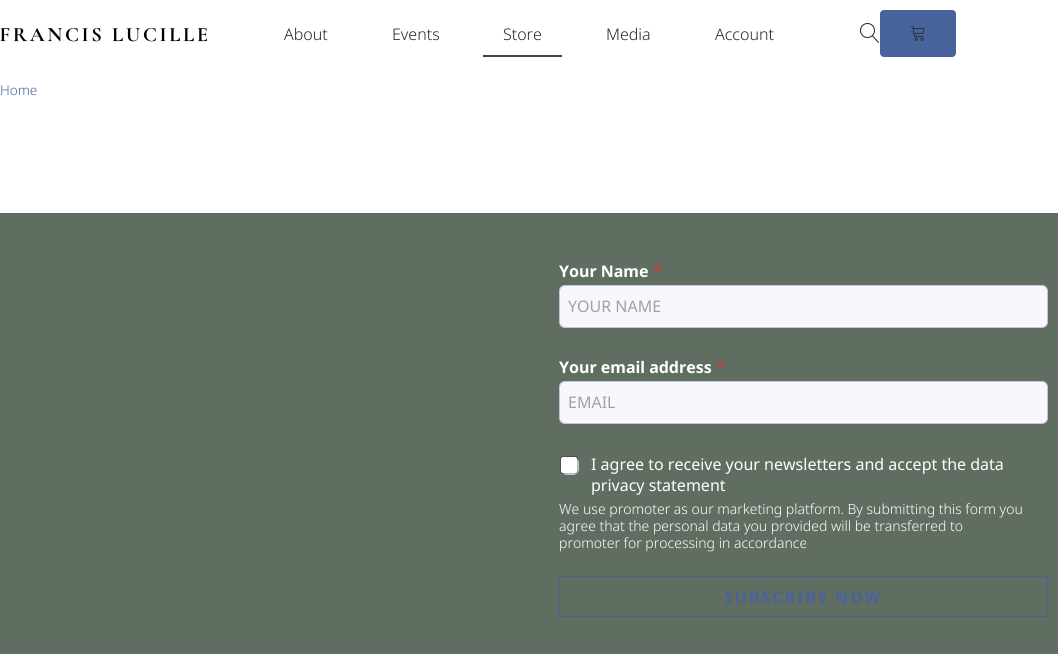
import math
import cairo

surface = cairo.ImageSurface(cairo.FORMAT_RGB24, 1058, 654)
cr = cairo.Context(surface)
options = cairo.FontOptions()
options.set_hint_metrics(cairo.HINT_METRICS_OFF)
options.set_hint_style(cairo.HINT_STYLE_NONE)
cr.set_font_options(options)
cr.set_miter_limit(4)


def rgb(code):
    cr.set_source_rgb(*(v / 255 for v in bytes.fromhex(code[-6:])))


def tracked(x, y, s, letter, word):
    cr.move_to(x, y)
    for ch in s:
        cr.show_text(ch)
        cr.rel_move_to(letter + word * (ch == ' '), 0)


def rrect(x, y, w, h, r):
    cr.new_sub_path()
    for i, (u, v) in enumerate([(x + w - r, y + h - r), (x + r, y + h - r), (x + r, y + r), (x + w - r, y + r)]):
        cr.arc(u, v, r, i * math.pi / 2, (i + 1) * math.pi / 2)
    cr.close_path()


def image(path, x, y, w, h):
    cr.save()
    cr.set_source_surface(cairo.ImageSurface.create_from_png(path), x, y)
    cr.rectangle(x, y, w, h)
    cr.fill()
    cr.restore()


rgb("#ffffff")
cr.paint()
image("img/1.png", 0, 28, 207, 14)
rgb("#3f444b")
cr.rectangle(483, 55, 79, 2)
cr.fill()
image("img/2.png", 860, 23, 19, 20)
rgb("#48639c")
rrect(880, 10, 76, 47, 4)
cr.fill()
image("img/3.png", 910, 26, 15, 15)
rgb("#606d61")
cr.rectangle(0, 213, 1058, 441)
cr.fill()
rgb("#f7f7fd")
rrect(559.5, 285.5, 488, 42, 5.5)
cr.fill_preserve()
rgb("#c5c0db")
cr.set_line_width(1)
cr.stroke()
rgb("#f7f7fd")
rrect(559.5, 381.5, 488, 42, 5.5)
cr.fill_preserve()
rgb("#c5c0db")
cr.stroke()
rgb("#f7f7fd")
rrect(561.5, 457.5, 17, 17, 5.5)
cr.fill_preserve()
rgb("#c5c0db")
cr.stroke()
rgb("#ffffff")
rrect(561, 457, 16, 16, 2)
cr.fill()
rrect(560.5, 456.5, 17, 17, 2.5)
cr.set_source_rgba(0, 0, 0, 0.25)
cr.stroke()
cr.rectangle(559.5, 576.5, 488, 40)
rgb("#48639c")
cr.stroke()
cr.select_font_face("Noto Sans Light")
cr.set_font_size(16)
rgb("#222823")
for x, y, s in [
    (284, 40, "About"),
    (392, 40, "Events"),
    (503, 40, "Store"),
    (606, 40, "Media"),
    (715, 40, "Account"),
]:
    cr.move_to(x, y)
    cr.show_text(s)
cr.set_font_size(13.5)
rgb("#48639c")
cr.move_to(0, 95)
cr.show_text("Home")
cr.select_font_face("Noto Sans", cairo.FONT_SLANT_NORMAL, cairo.FONT_WEIGHT_BOLD)
cr.set_font_size(16)
rgb("#ffffff")
cr.move_to(559, 277)
cr.show_text("Your Name")
cr.select_font_face("Noto Sans")
rgb("#d63637")
cr.move_to(653, 277)
cr.show_text("*")
rgb("#a1a1a5")
cr.move_to(568, 312)
cr.show_text("YOUR NAME")
cr.select_font_face("Noto Sans", cairo.FONT_SLANT_NORMAL, cairo.FONT_WEIGHT_BOLD)
rgb("#ffffff")
cr.move_to(559, 373)
cr.show_text("Your email address")
cr.select_font_face("Noto Sans")
rgb("#d63637")
cr.move_to(716, 373)
cr.show_text("*")
rgb("#a1a1a5")
cr.move_to(568, 408)
cr.show_text("EMAIL")
rgb("#ffffff")
cr.move_to(591, 470)
cr.show_text("I agree to receive your newsletters and accept the data")
cr.move_to(591, 491)
cr.show_text("privacy statement")
cr.select_font_face("Noto Sans Light")
cr.set_font_size(14)
for x, y, s in [
    (559, 514, "We use promoter as our marketing platform. By submitting this form you"),
    (559, 531, "agree that the personal data you provided will be transferred to"),
    (559, 548, "promoter for processing in accordance"),
]:
    cr.move_to(x, y)
    cr.show_text(s)
cr.select_font_face("Noto Sans", cairo.FONT_SLANT_NORMAL, cairo.FONT_WEIGHT_BOLD)
cr.set_font_size(16)
rgb("#48639c")
tracked(724, 603, "SUBSCRIBE NOW", 2, 0)
surface.write_to_png("page.png")
